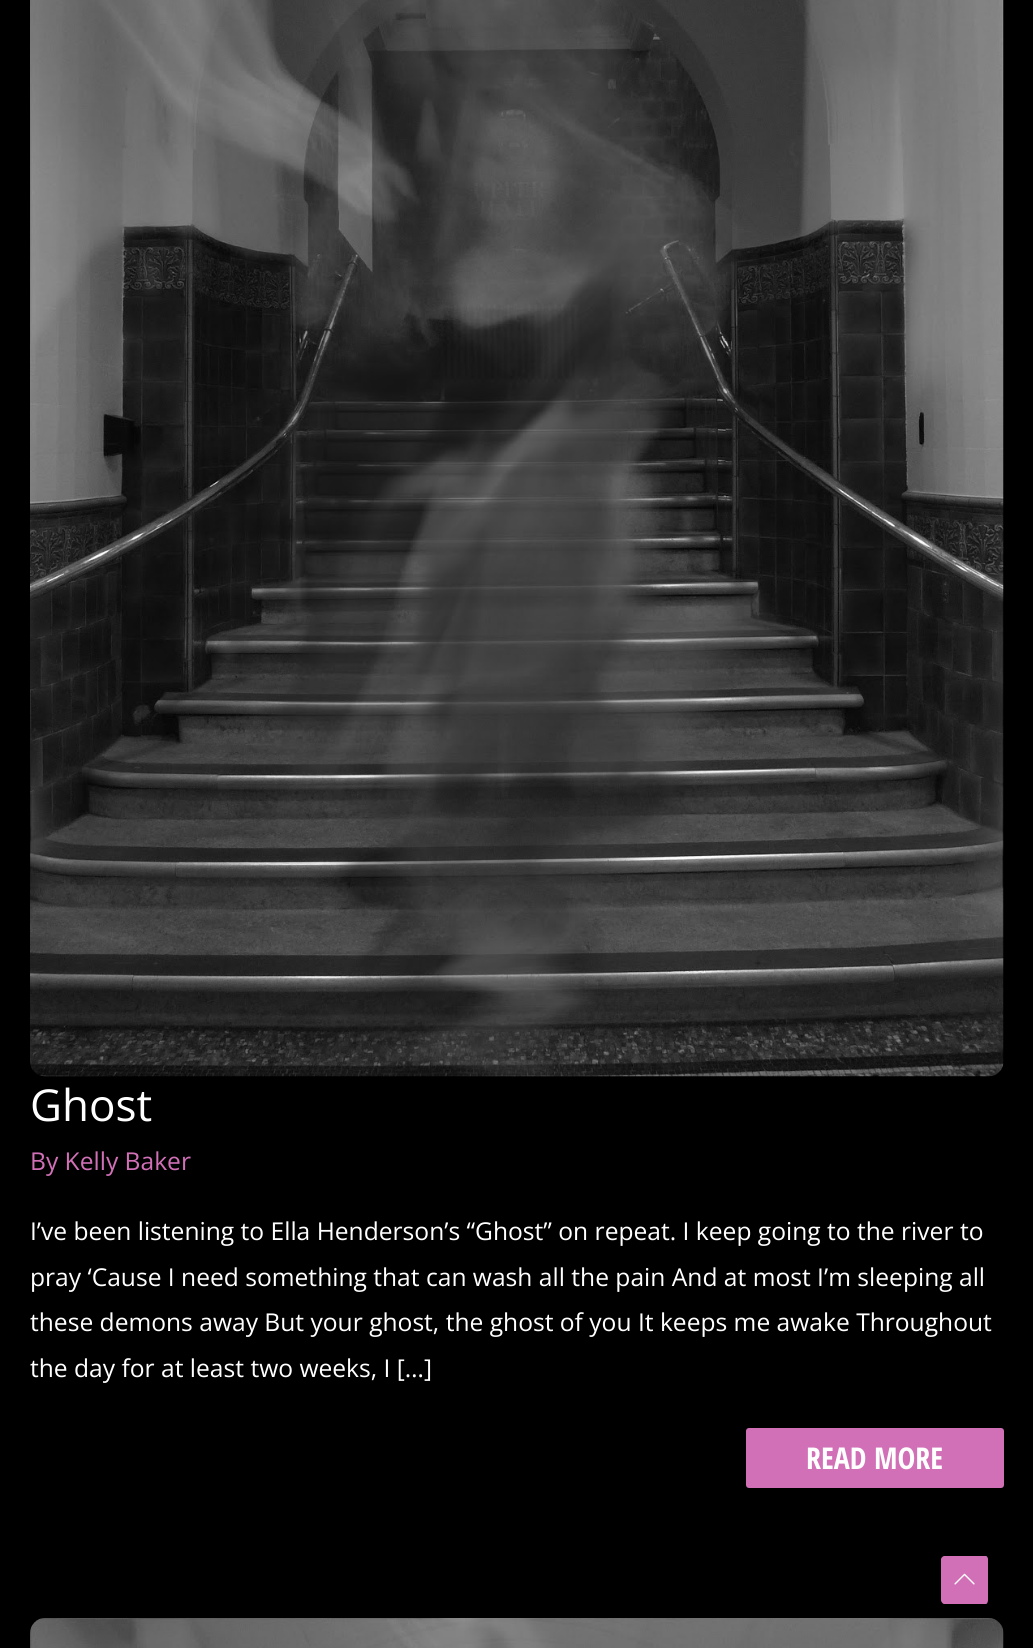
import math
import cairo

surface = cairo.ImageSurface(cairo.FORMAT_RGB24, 1033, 1648)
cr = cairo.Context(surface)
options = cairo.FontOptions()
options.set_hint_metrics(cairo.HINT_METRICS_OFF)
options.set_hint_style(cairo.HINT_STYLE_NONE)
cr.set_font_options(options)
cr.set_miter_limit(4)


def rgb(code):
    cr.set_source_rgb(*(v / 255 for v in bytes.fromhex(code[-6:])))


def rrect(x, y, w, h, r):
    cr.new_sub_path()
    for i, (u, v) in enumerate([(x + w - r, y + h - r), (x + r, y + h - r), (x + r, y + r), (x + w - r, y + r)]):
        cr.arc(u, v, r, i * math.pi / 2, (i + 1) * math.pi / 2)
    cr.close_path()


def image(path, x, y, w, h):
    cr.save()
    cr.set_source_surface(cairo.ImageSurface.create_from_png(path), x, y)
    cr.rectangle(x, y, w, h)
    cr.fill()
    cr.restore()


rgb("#000000")
cr.paint()
image("img/1.png", 30, 0, 974, 1077)
rgb("#d170b7")
rrect(746, 1428, 258, 60, 3)
cr.fill()
image("img/2.png", 30, 1618, 974, 30)
cr.new_path()
cr.move_to(986, 1604)
cr.line_to(944, 1604)
cr.curve_to(943, 1604, 941, 1602, 941, 1600)
cr.line_to(941, 1559)
cr.curve_to(941, 1558, 943, 1556, 944, 1556)
cr.line_to(986, 1556)
cr.curve_to(987, 1556, 988, 1558, 988, 1559)
cr.line_to(988, 1600)
cr.curve_to(988, 1602, 987, 1604, 986, 1604)
cr.close_path()
cr.fill()
image("img/3.png", 954, 1573, 21, 12)
cr.select_font_face("Open Sans")
cr.set_font_size(44)
rgb("#ffffff")
cr.move_to(30, 1121)
cr.show_text("Ghost")
cr.set_font_size(24.6)
rgb("#d170b7")
cr.move_to(30, 1170)
cr.show_text("By Kelly Baker")
rgb("#ffffff")
for x, y, s in [
    (30, 1240, "I’ve been listening to Ella Henderson’s “Ghost” on repeat. I keep going to the river to"),
    (30, 1286, "pray ‘Cause I need something that can wash all the pain And at most I’m sleeping all"),
    (30, 1331, "these demons away But your ghost, the ghost of you It keeps me awake Throughout"),
    (30, 1377, "the day for at least two weeks, I […]"),
]:
    cr.move_to(x, y)
    cr.show_text(s)
cr.select_font_face("Open Sans Condensed", cairo.FONT_SLANT_NORMAL, cairo.FONT_WEIGHT_BOLD)
cr.set_font_size(30)
cr.move_to(806, 1469)
cr.show_text("READ MORE")
surface.write_to_png("page.png")
